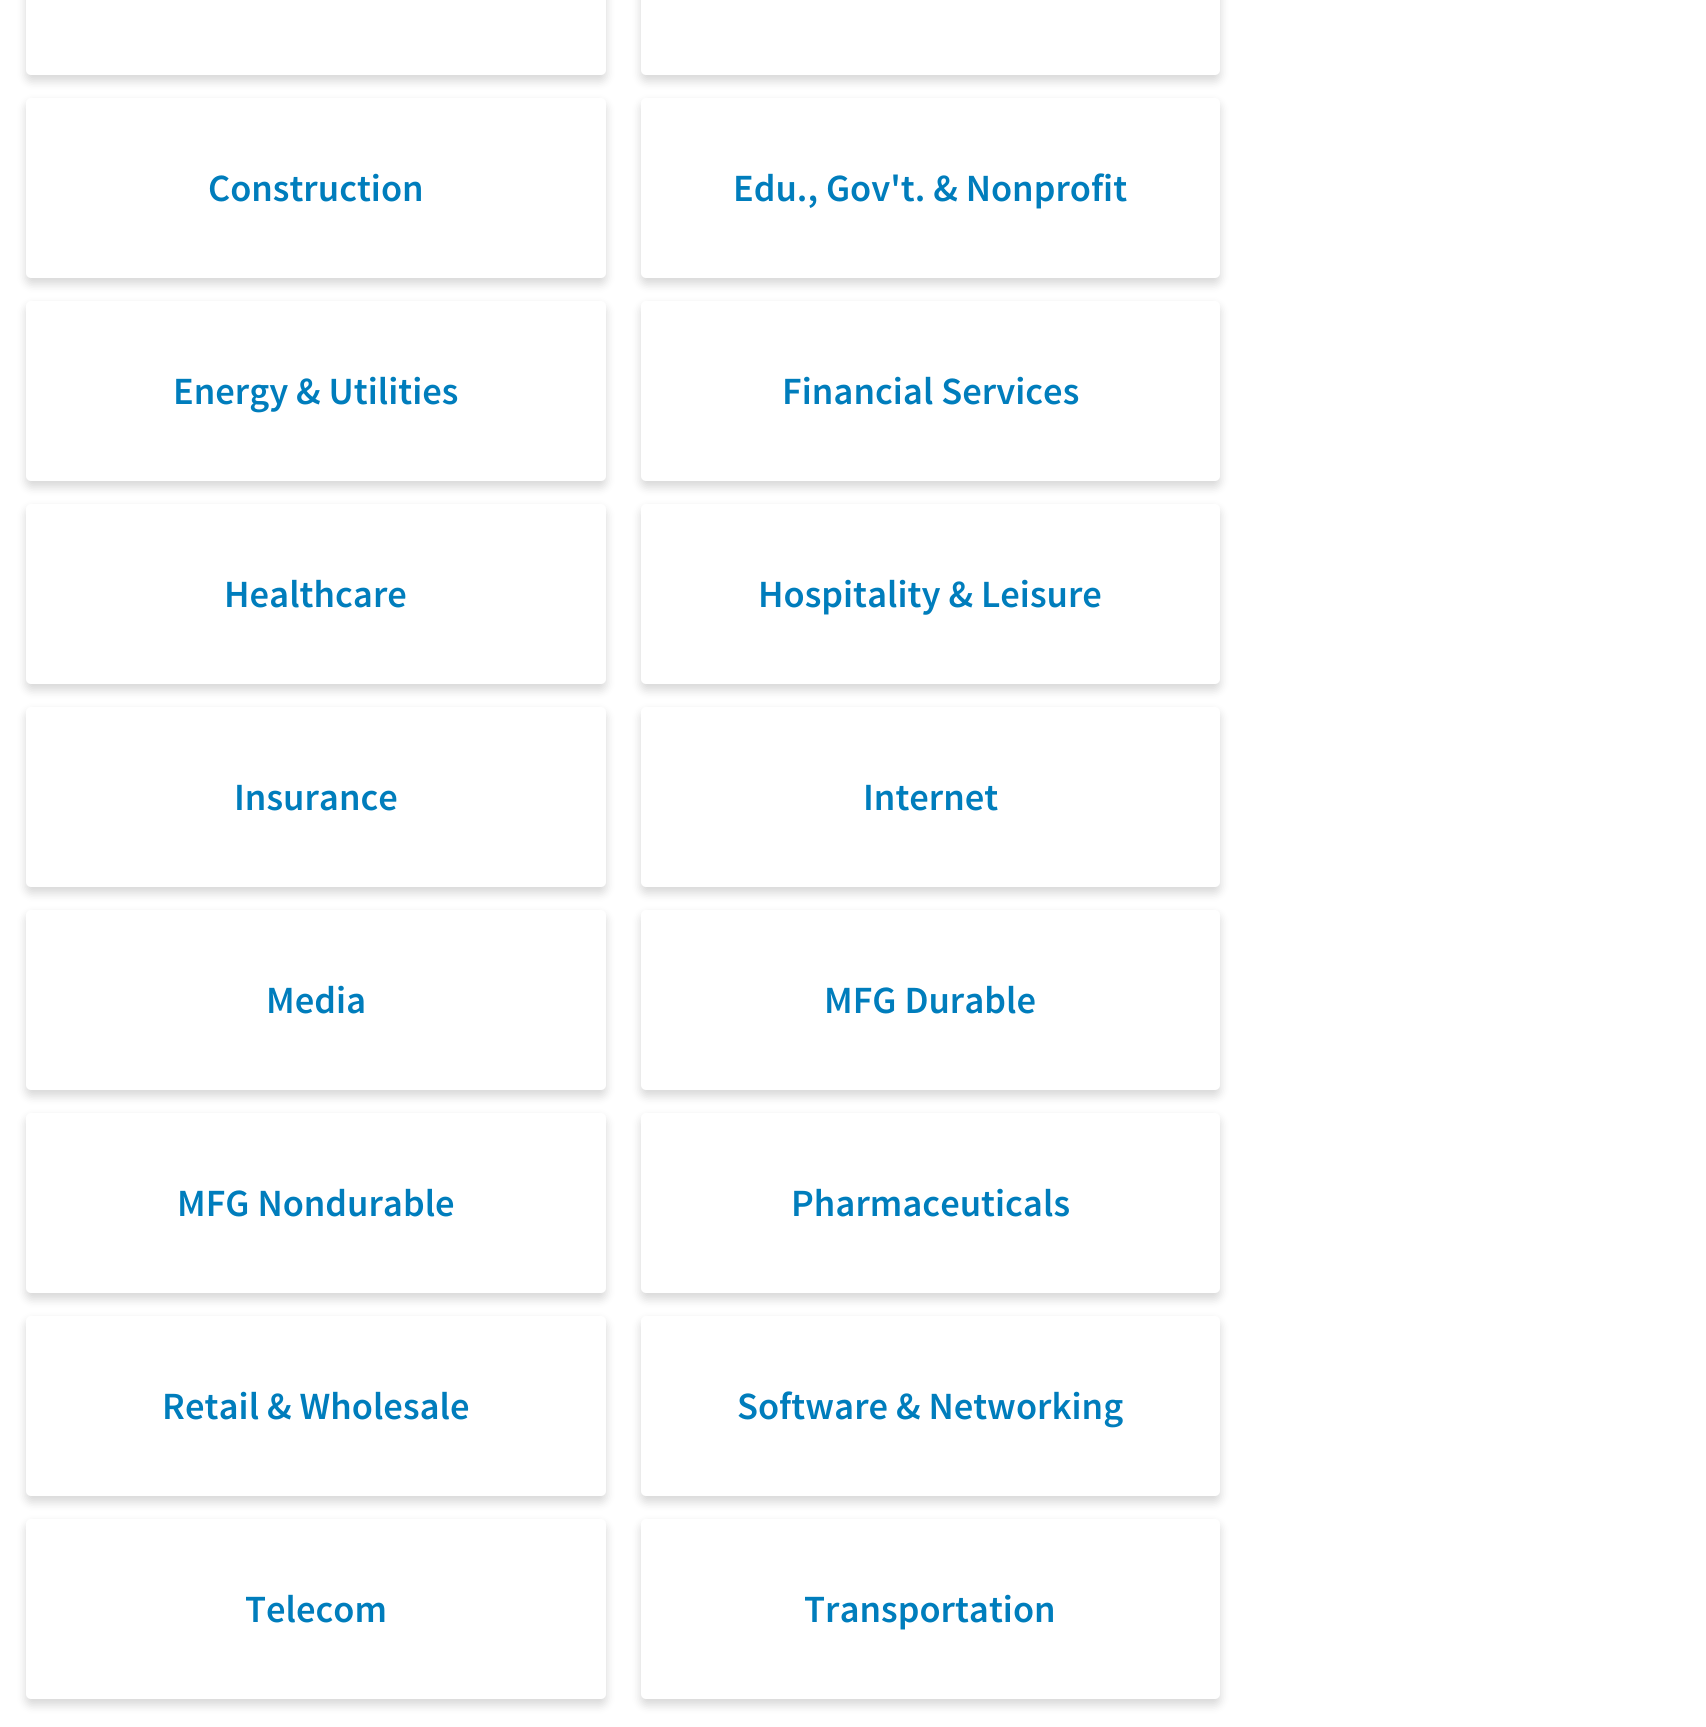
import math
import cairo

surface = cairo.ImageSurface(cairo.FORMAT_RGB24, 1706, 1727)
cr = cairo.Context(surface)
options = cairo.FontOptions()
options.set_hint_metrics(cairo.HINT_METRICS_OFF)
options.set_hint_style(cairo.HINT_STYLE_NONE)
cr.set_font_options(options)
cr.set_miter_limit(4)


def rgb(code):
    cr.set_source_rgb(*(v / 255 for v in bytes.fromhex(code[-6:])))


def rrect(x, y, w, h, r):
    cr.new_sub_path()
    for i, (u, v) in enumerate([(x + w - r, y + h - r), (x + r, y + h - r), (x + r, y + r), (x + w - r, y + r)]):
        cr.arc(u, v, r, i * math.pi / 2, (i + 1) * math.pi / 2)
    cr.close_path()


def soft_shadow(x, y, w, h, r, blur, alpha):
    cr.push_group_with_content(cairo.CONTENT_ALPHA)
    cr.set_operator(cairo.OPERATOR_SOURCE)
    for i in range(15, -16, -2):
        e = blur * i / 6
        if min(w, h) + 2 * e > 0:
            cr.set_source_rgba(0, 0, 0, alpha * math.erfc((i - 1) / 8.5) / 2)
            rrect(x - e, y - e, w + 2 * e, h + 2 * e, max(0, min(r + e + blur * .6, min(w, h) / 2 + e)))
            cr.fill()
    cr.mask(cr.pop_group())


rgb("#ffffff")
cr.paint()
rgb("#000000")
soft_shadow(26, -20, 580, 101, 5, 5, 0.16)
rgb("#ffffff")
rrect(26, -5, 580, 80, 5)
cr.fill()
rgb("#000000")
soft_shadow(641, -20, 579, 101, 5, 5, 0.16)
rgb("#ffffff")
rrect(641, -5, 579, 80, 5)
cr.fill()
rgb("#000000")
soft_shadow(26, 103, 580, 181, 5, 5, 0.16)
rgb("#ffffff")
rrect(26, 98, 580, 180, 5)
cr.fill()
rgb("#000000")
soft_shadow(641, 103, 579, 181, 5, 5, 0.16)
rgb("#ffffff")
rrect(641, 98, 579, 180, 5)
cr.fill()
rgb("#000000")
soft_shadow(26, 306, 580, 181, 5, 5, 0.16)
rgb("#ffffff")
rrect(26, 301, 580, 180, 5)
cr.fill()
rgb("#000000")
soft_shadow(641, 306, 579, 181, 5, 5, 0.16)
rgb("#ffffff")
rrect(641, 301, 579, 180, 5)
cr.fill()
rgb("#000000")
soft_shadow(26, 509, 580, 181, 5, 5, 0.16)
rgb("#ffffff")
rrect(26, 504, 580, 180, 5)
cr.fill()
rgb("#000000")
soft_shadow(641, 509, 579, 181, 5, 5, 0.16)
rgb("#ffffff")
rrect(641, 504, 579, 180, 5)
cr.fill()
rgb("#000000")
soft_shadow(26, 712, 580, 181, 5, 5, 0.16)
rgb("#ffffff")
rrect(26, 707, 580, 180, 5)
cr.fill()
rgb("#000000")
soft_shadow(641, 712, 579, 181, 5, 5, 0.16)
rgb("#ffffff")
rrect(641, 707, 579, 180, 5)
cr.fill()
rgb("#000000")
soft_shadow(26, 915, 580, 181, 5, 5, 0.16)
rgb("#ffffff")
rrect(26, 910, 580, 180, 5)
cr.fill()
rgb("#000000")
soft_shadow(641, 915, 579, 181, 5, 5, 0.16)
rgb("#ffffff")
rrect(641, 910, 579, 180, 5)
cr.fill()
rgb("#000000")
soft_shadow(26, 1118, 580, 181, 5, 5, 0.16)
rgb("#ffffff")
rrect(26, 1113, 580, 180, 5)
cr.fill()
rgb("#000000")
soft_shadow(641, 1118, 579, 181, 5, 5, 0.16)
rgb("#ffffff")
rrect(641, 1113, 579, 180, 5)
cr.fill()
rgb("#000000")
soft_shadow(26, 1321, 580, 181, 5, 5, 0.16)
rgb("#ffffff")
rrect(26, 1316, 580, 180, 5)
cr.fill()
rgb("#000000")
soft_shadow(641, 1321, 579, 181, 5, 5, 0.16)
rgb("#ffffff")
rrect(641, 1316, 579, 180, 5)
cr.fill()
rgb("#000000")
soft_shadow(26, 1524, 580, 181, 5, 5, 0.16)
rgb("#ffffff")
rrect(26, 1519, 580, 180, 5)
cr.fill()
rgb("#000000")
soft_shadow(641, 1524, 579, 181, 5, 5, 0.16)
rgb("#ffffff")
rrect(641, 1519, 579, 180, 5)
cr.fill()
cr.select_font_face("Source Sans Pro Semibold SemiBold")
cr.set_font_size(38.5)
rgb("#007dbc")
for x, y, s in [
    (208, 201, "Construction"),
    (733, 201, "Edu., Gov't. & Nonprofit"),
    (173, 404, "Energy & Utilities"),
    (782, 404, "Financial Services"),
    (224, 607, "Healthcare"),
    (758, 607, "Hospitality & Leisure"),
    (234, 810, "Insurance"),
    (863, 810, "Internet"),
    (266, 1013, "Media"),
    (824, 1013, "MFG Durable"),
    (177, 1216, "MFG Nondurable"),
    (791, 1216, "Pharmaceuticals"),
    (162, 1419, "Retail & Wholesale"),
    (737, 1419, "Software & Networking"),
    (245, 1622, "Telecom"),
    (804, 1622, "Transportation"),
]:
    cr.move_to(x, y)
    cr.show_text(s)
surface.write_to_png("page.png")
